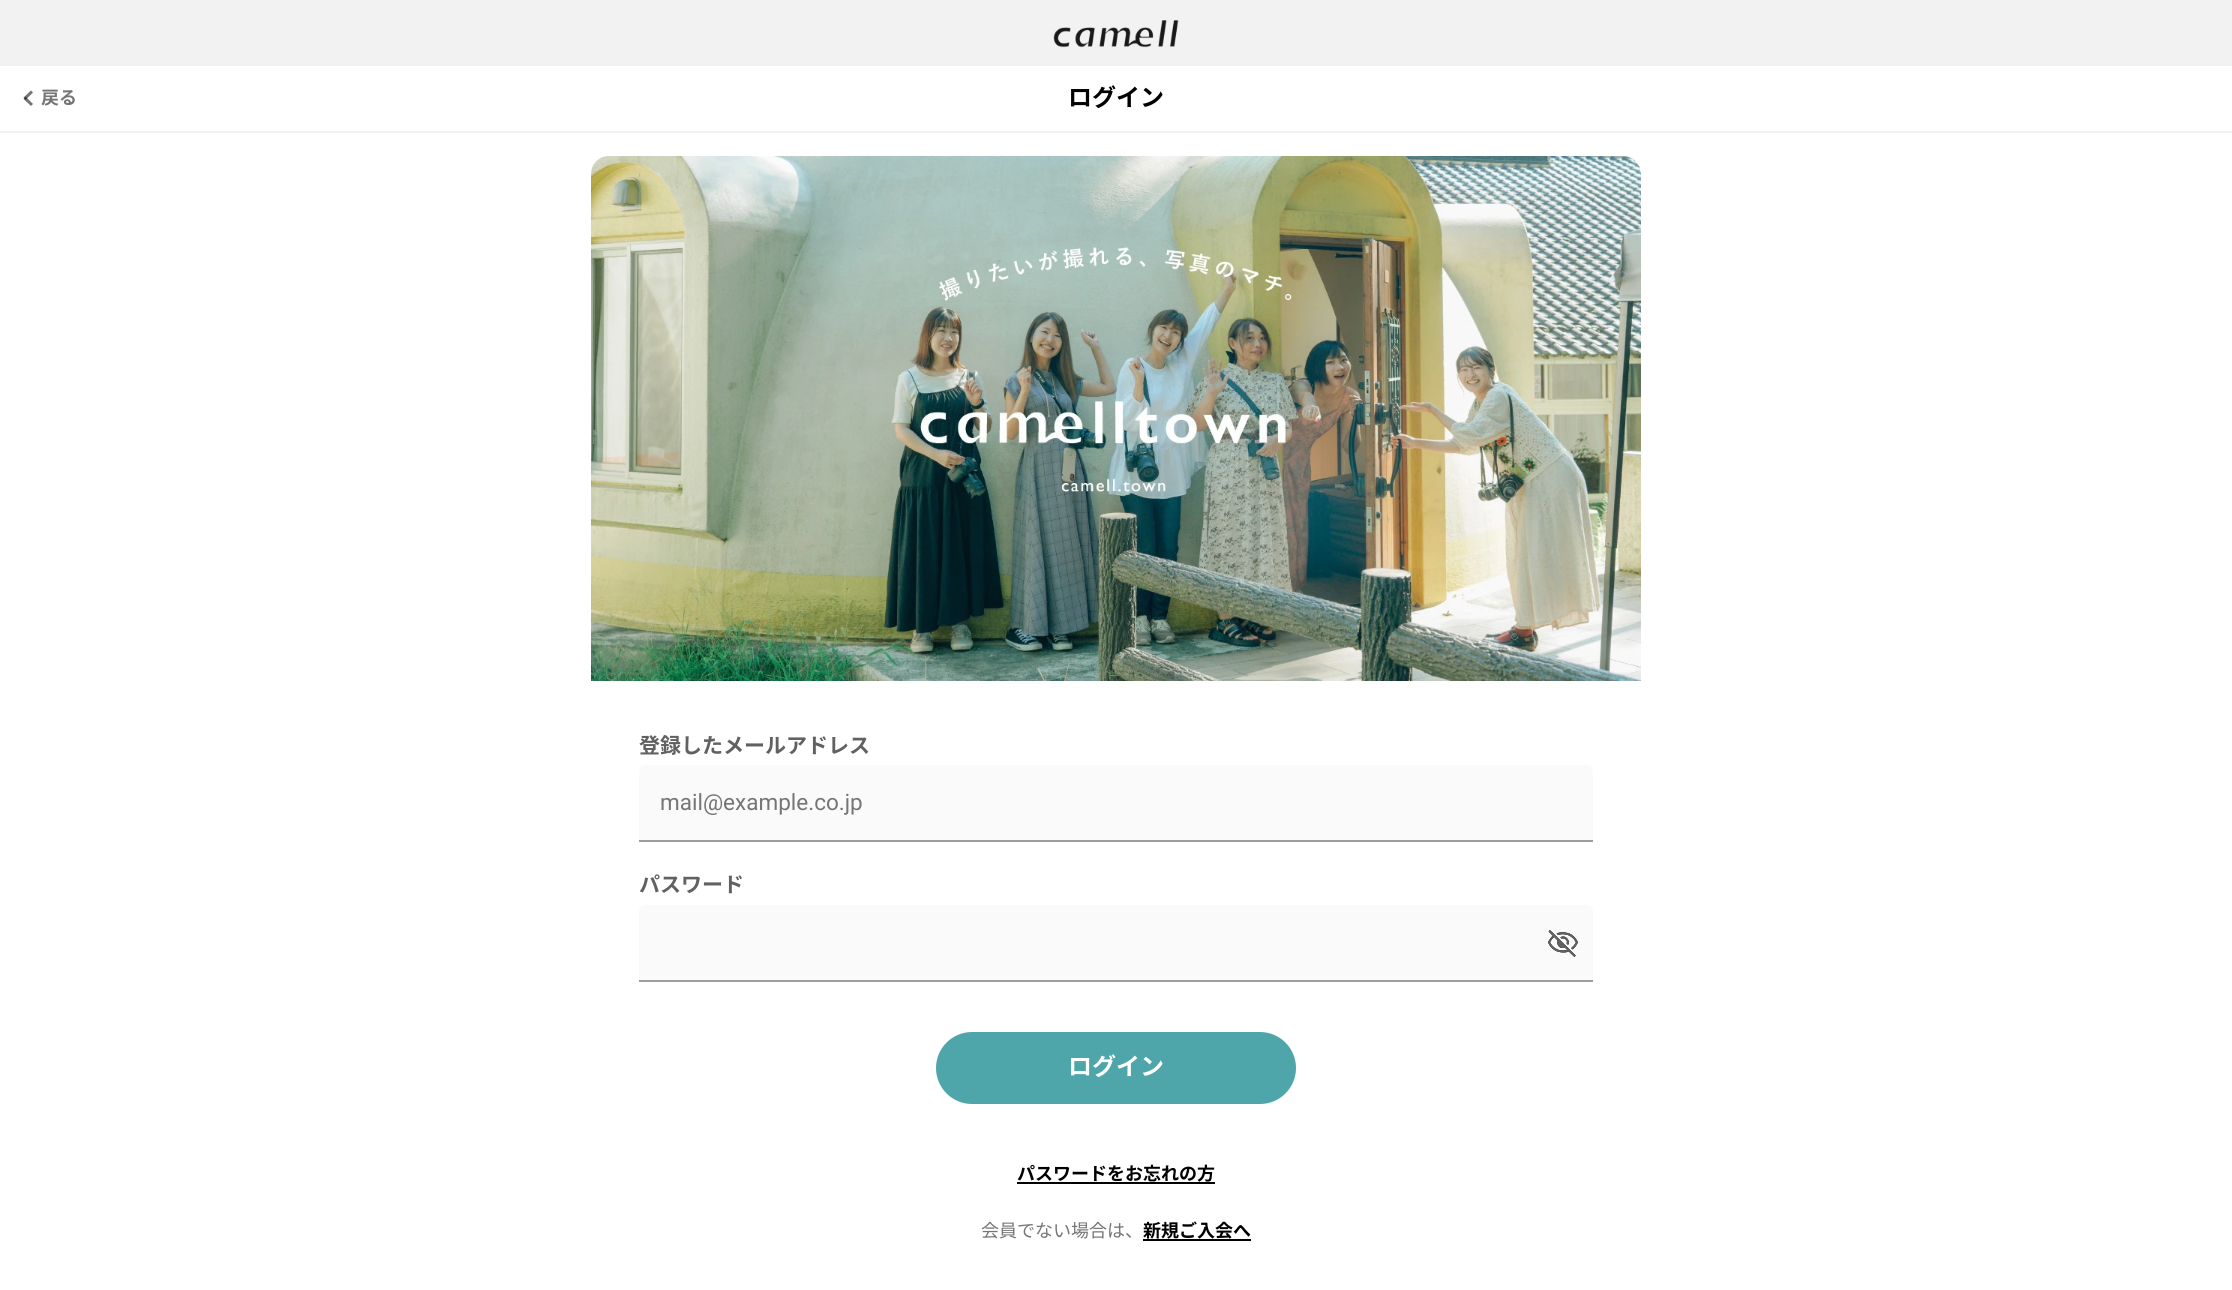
import math
import cairo

surface = cairo.ImageSurface(cairo.FORMAT_RGB24, 2232, 1290)
cr = cairo.Context(surface)
options = cairo.FontOptions()
options.set_hint_metrics(cairo.HINT_METRICS_OFF)
options.set_hint_style(cairo.HINT_STYLE_NONE)
cr.set_font_options(options)
cr.set_miter_limit(4)


def rgb(code):
    cr.set_source_rgb(*(v / 255 for v in bytes.fromhex(code[-6:])))


def rrect(x, y, w, h, r):
    cr.new_sub_path()
    for i, (u, v) in enumerate([(x + w - r, y + h - r), (x + r, y + h - r), (x + r, y + r), (x + w - r, y + r)]):
        cr.arc(u, v, r, i * math.pi / 2, (i + 1) * math.pi / 2)
    cr.close_path()


def image(path, x, y, w, h):
    cr.save()
    cr.set_source_surface(cairo.ImageSurface.create_from_png(path), x, y)
    cr.rectangle(x, y, w, h)
    cr.fill()
    cr.restore()


rgb("#ffffff")
cr.paint()
rgb("#f2f2f2")
cr.rectangle(0, 0, 2232, 66)
cr.fill()
image("img/1.png", 1053, 20, 126, 28)
cr.rectangle(0, 131, 2232, 2)
cr.fill()
rgb("#757575")
cr.new_path()
cr.move_to(31, 106)
cr.line_to(23.5, 99)
cr.line_to(25.5, 96.5)
cr.line_to(33, 104)
cr.close_path()
cr.fill()
cr.set_source_rgba(0, 0, 0, 0.54)
cr.new_path()
cr.move_to(25.5, 100)
cr.line_to(23.5, 97.5)
cr.line_to(31, 90.5)
cr.line_to(33, 92.5)
cr.close_path()
cr.fill()
image("img/2.png", 591, 156, 1050, 525)
rgb("#fafafa")
cr.new_path()
cr.move_to(645, 765)
cr.line_to(1587, 765)
cr.curve_to(1590.5, 765, 1593, 767.5, 1593, 771)
cr.line_to(1593, 842)
cr.line_to(639, 842)
cr.line_to(639, 771)
cr.curve_to(639, 767.5, 641.5, 765, 645, 765)
cr.close_path()
cr.fill()
rgb("#9e9e9e")
cr.rectangle(639, 840, 954, 2)
cr.fill()
rgb("#fafafa")
cr.new_path()
cr.move_to(645, 905)
cr.line_to(1587, 905)
cr.curve_to(1590.5, 905, 1593, 907.5, 1593, 911)
cr.line_to(1593, 981)
cr.line_to(639, 981)
cr.line_to(639, 911)
cr.curve_to(639, 907.5, 641.5, 905, 645, 905)
cr.close_path()
cr.fill()
rgb("#9e9e9e")
cr.rectangle(639, 980, 954, 2)
cr.fill()
image("img/3.png", 1548, 930, 30, 27)
rgb("#4fa6aa")
rrect(936, 1032, 360, 72, 36)
cr.fill()
rgb("#000000")
cr.rectangle(1017, 1182, 198, 2)
cr.fill()
cr.rectangle(1143, 1239, 108, 2)
cr.fill()
cr.select_font_face("Noto Sans JP", cairo.FONT_SLANT_NORMAL, cairo.FONT_WEIGHT_BOLD)
cr.set_font_size(18)
rgb("#757575")
cr.move_to(41, 104)
cr.show_text("戻る")
cr.set_font_size(24)
rgb("#000000")
cr.move_to(1068, 106)
cr.show_text("ログイン")
cr.set_font_size(21)
rgb("#616161")
cr.move_to(639, 753)
cr.show_text("登録したメールアドレス")
cr.select_font_face("Roboto")
cr.set_font_size(22.5)
rgb("#757575")
cr.move_to(660, 810)
cr.show_text("mail@example.co.jp")
cr.select_font_face("Noto Sans JP", cairo.FONT_SLANT_NORMAL, cairo.FONT_WEIGHT_BOLD)
cr.set_font_size(21)
rgb("#616161")
cr.move_to(639, 892)
cr.show_text("パスワード")
cr.set_font_size(24)
rgb("#ffffff")
cr.move_to(1068, 1075)
cr.show_text("ログイン")
cr.set_font_size(18)
rgb("#000000")
cr.move_to(1017, 1180)
cr.show_text("パスワードをお忘れの方")
cr.select_font_face("Noto Sans JP")
rgb("#757575")
cr.move_to(981, 1237)
cr.show_text("会員でない場合は、")
cr.select_font_face("Noto Sans JP", cairo.FONT_SLANT_NORMAL, cairo.FONT_WEIGHT_BOLD)
rgb("#000000")
cr.move_to(1143, 1237)
cr.show_text("新規ご入会へ")
surface.write_to_png("page.png")
